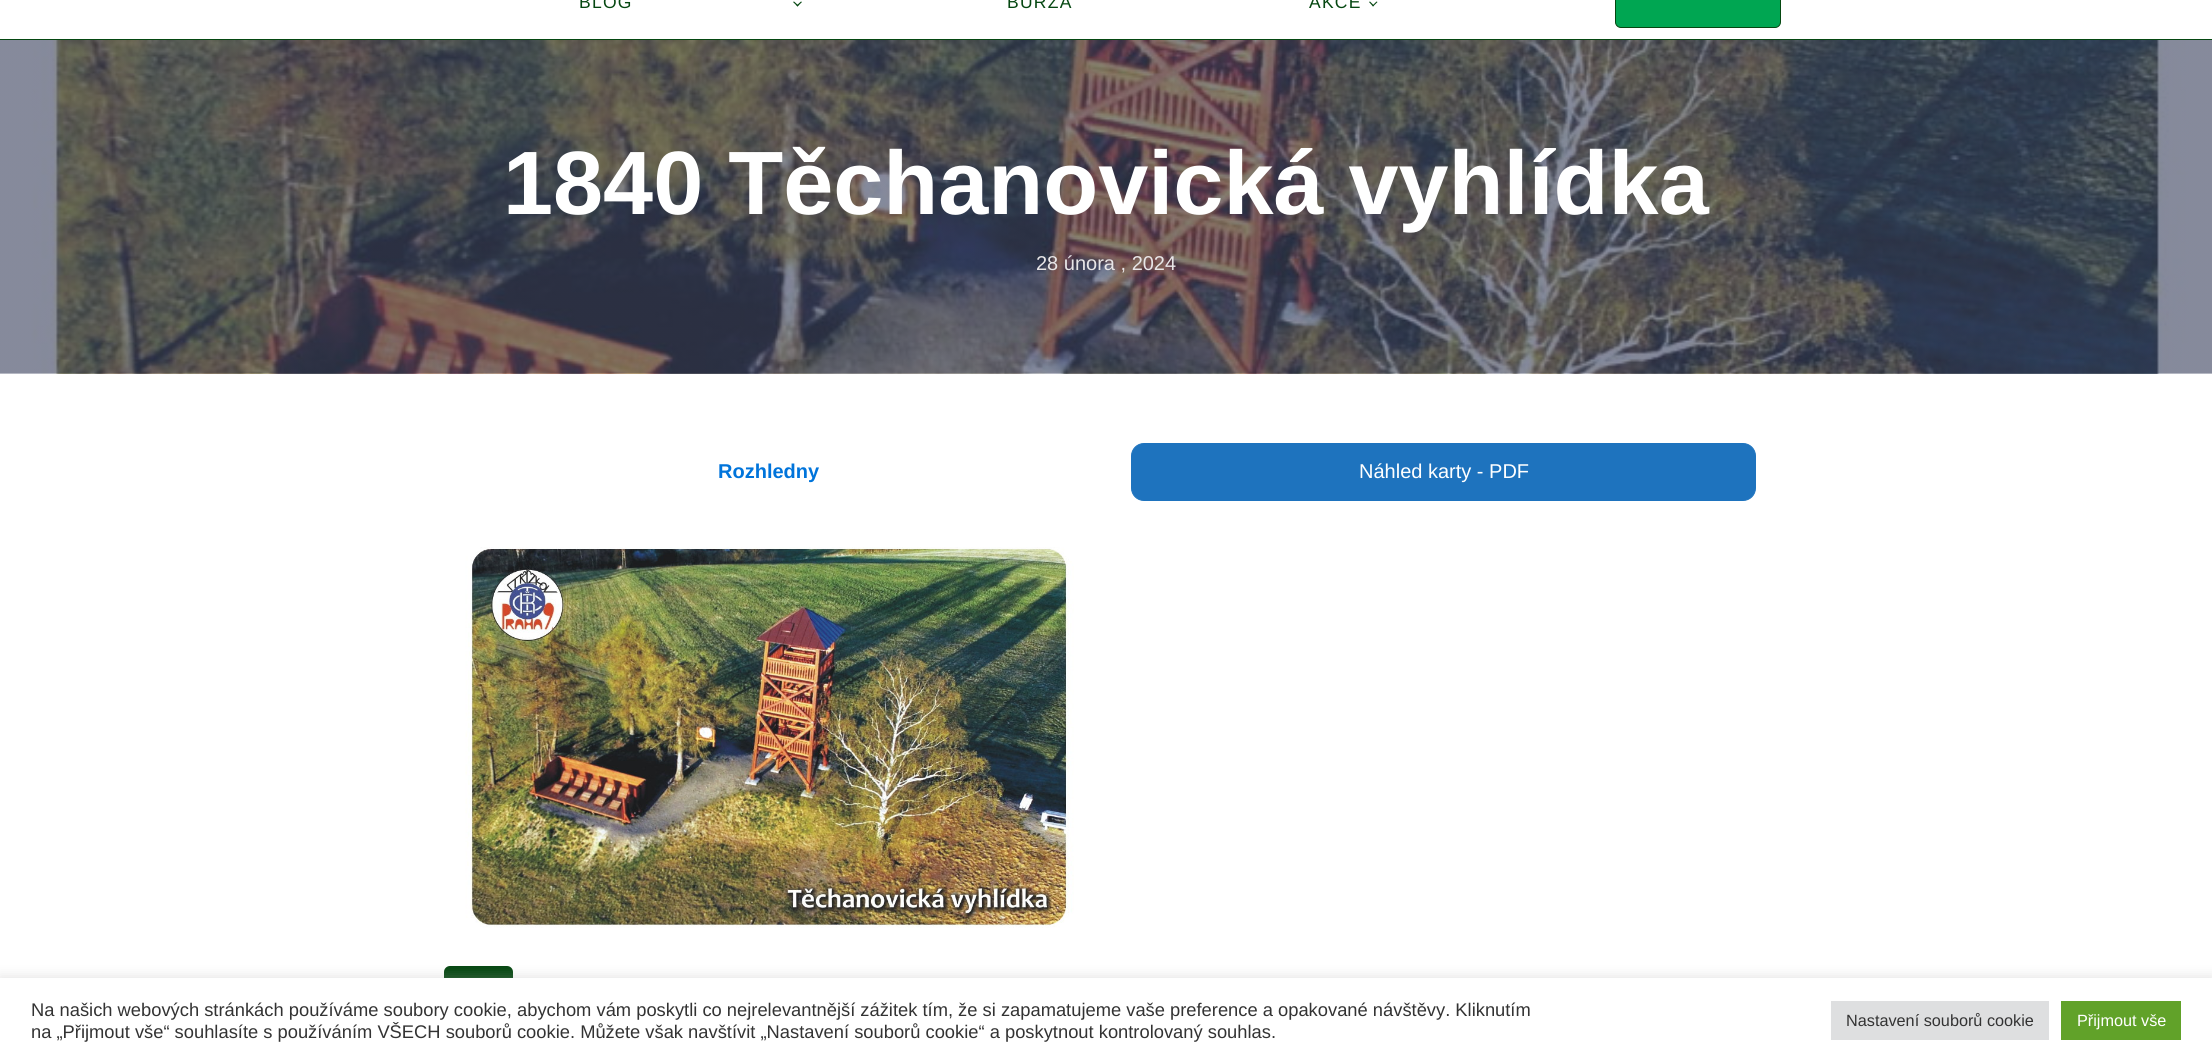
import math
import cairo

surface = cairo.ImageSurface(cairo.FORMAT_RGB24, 2212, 1063)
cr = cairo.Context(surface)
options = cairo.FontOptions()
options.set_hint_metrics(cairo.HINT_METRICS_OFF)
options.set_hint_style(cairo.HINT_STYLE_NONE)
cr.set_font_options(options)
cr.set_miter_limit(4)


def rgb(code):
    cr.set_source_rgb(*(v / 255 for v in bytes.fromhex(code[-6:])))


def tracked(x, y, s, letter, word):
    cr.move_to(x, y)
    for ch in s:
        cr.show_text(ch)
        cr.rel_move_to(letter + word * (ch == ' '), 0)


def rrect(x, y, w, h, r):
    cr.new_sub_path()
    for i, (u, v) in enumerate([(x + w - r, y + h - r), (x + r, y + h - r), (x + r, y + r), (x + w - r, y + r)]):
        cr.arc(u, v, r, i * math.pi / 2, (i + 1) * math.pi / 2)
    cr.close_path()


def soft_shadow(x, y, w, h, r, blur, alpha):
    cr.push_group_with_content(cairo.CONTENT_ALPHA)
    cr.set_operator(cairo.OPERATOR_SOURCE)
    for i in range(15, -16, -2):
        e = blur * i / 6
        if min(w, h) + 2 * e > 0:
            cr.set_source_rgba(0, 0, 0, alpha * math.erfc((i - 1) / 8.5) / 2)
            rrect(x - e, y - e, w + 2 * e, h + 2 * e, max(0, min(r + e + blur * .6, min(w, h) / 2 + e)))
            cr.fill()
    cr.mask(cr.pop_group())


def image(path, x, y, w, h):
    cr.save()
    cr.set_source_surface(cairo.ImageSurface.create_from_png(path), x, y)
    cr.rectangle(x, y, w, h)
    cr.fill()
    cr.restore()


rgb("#ffffff")
cr.paint()
rgb("#054711")
cr.rectangle(0, 39, 2212, 1)
cr.fill()
cr.new_path()
cr.move_to(802, 2)
cr.line_to(797.5, 6.5)
cr.line_to(796.5, 5.5)
cr.line_to(801, 1.5)
cr.close_path()
cr.fill()
cr.new_path()
cr.move_to(798.5, 5.5)
cr.line_to(797.5, 6.5)
cr.line_to(793, 2)
cr.line_to(794, 1.5)
cr.close_path()
cr.fill()
cr.new_path()
cr.move_to(1377.5, 2)
cr.line_to(1373, 6.5)
cr.line_to(1372.5, 5.5)
cr.line_to(1376.5, 1.5)
cr.close_path()
cr.fill()
cr.new_path()
cr.move_to(1374, 5.5)
cr.line_to(1373, 6.5)
cr.line_to(1369, 2)
cr.line_to(1370, 1.5)
cr.close_path()
cr.fill()
rgb("#00a652")
rrect(1615.5, -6.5, 165, 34, 5.5)
cr.fill_preserve()
rgb("#054711")
cr.set_line_width(1)
cr.stroke()
image("img/1.png", 0, 40, 2212, 334)
rgb("#1e73be")
rrect(1131.5, 443.5, 624, 57, 12.5)
cr.fill_preserve()
cr.stroke()
image("img/2.png", 465, 547, 609, 381)
rgb("#054711")
rrect(444, 966, 69, 43, 6)
cr.fill()
rgb("#acabab")
soft_shadow(0, 976, 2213, 87, 0, 6, 0.3)
for x, y, w, h, color in [
    (0, 978, 2212, 85, "#ffffff"),
    (1831, 1001, 218, 39, "#dedfe0"),
    (2061, 1001, 120, 39, "#61a229"),
]:
    rgb(color)
    cr.rectangle(x, y, w, h)
    cr.fill()
cr.select_font_face("Liberation Sans")
cr.set_font_size(17.5)
rgb("#054711")
for x, y, s in [
    (579, 8, "BLOG"),
    (1007, 8, "BURZA"),
    (1309, 8, "AKCE"),
]:
    tracked(x, y, s, 1.25, 0)
cr.select_font_face("Liberation Sans", cairo.FONT_SLANT_NORMAL, cairo.FONT_WEIGHT_BOLD)
cr.set_font_size(90)
rgb("#ffffff")
cr.move_to(503, 214)
cr.show_text("1840 Těchanovická vyhlídka")
cr.select_font_face("Liberation Sans")
cr.set_font_size(20)
rgb("#e8e6e7")
cr.move_to(1036, 270)
cr.show_text("28 února , 2024")
cr.select_font_face("Liberation Sans", cairo.FONT_SLANT_NORMAL, cairo.FONT_WEIGHT_BOLD)
rgb("#0074db")
cr.move_to(718, 478)
cr.show_text("Rozhledny")
cr.select_font_face("Liberation Sans")
rgb("#ffffff")
cr.move_to(1359, 478)
cr.show_text("Náhled karty - PDF")
cr.set_font_size(18.33)
rgb("#333333")
cr.move_to(31, 1016)
cr.show_text("Na našich webových stránkách používáme soubory cookie, abychom vám poskytli co nejrelevantnější zážitek tím, že si zapamatujeme vaše preference a opakované návštěvy. Kliknutím")
cr.move_to(31, 1038)
cr.show_text("na „Přijmout vše“ souhlasíte s používáním VŠECH souborů cookie. Můžete však navštívit „Nastavení souborů cookie“ a poskytnout kontrolovaný souhlas.")
cr.set_font_size(16.25)
cr.move_to(1846, 1026)
cr.show_text("Nastavení souborů cookie")
rgb("#ffffff")
cr.move_to(2077, 1026)
cr.show_text("Přijmout vše")
surface.write_to_png("page.png")
